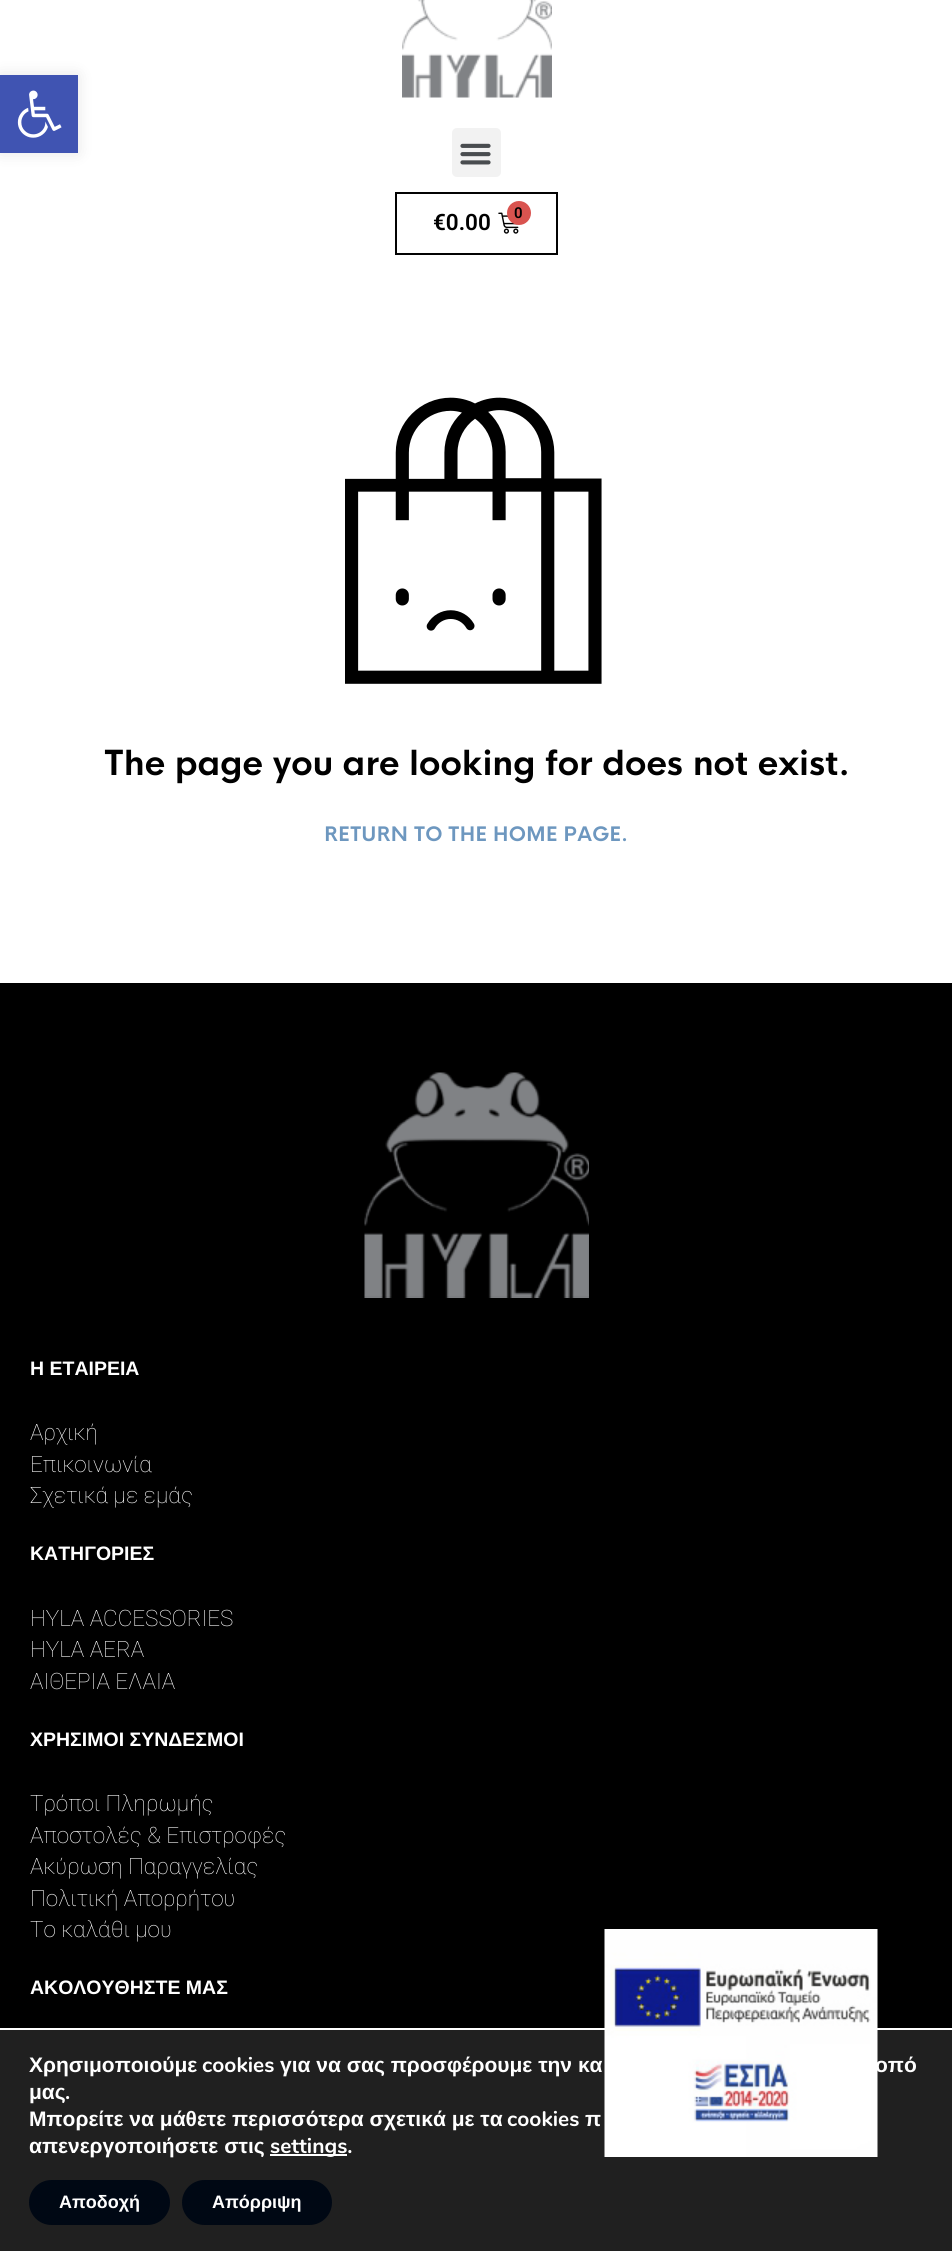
import math
import cairo

surface = cairo.ImageSurface(cairo.FORMAT_RGB24, 952, 2251)
cr = cairo.Context(surface)
options = cairo.FontOptions()
options.set_hint_metrics(cairo.HINT_METRICS_OFF)
options.set_hint_style(cairo.HINT_STYLE_NONE)
cr.set_font_options(options)
cr.set_miter_limit(4)


def rgb(code):
    cr.set_source_rgb(*(v / 255 for v in bytes.fromhex(code[-6:])))


def rrect(x, y, w, h, r):
    cr.new_sub_path()
    for i, (u, v) in enumerate([(x + w - r, y + h - r), (x + r, y + h - r), (x + r, y + r), (x + w - r, y + r)]):
        cr.arc(u, v, r, i * math.pi / 2, (i + 1) * math.pi / 2)
    cr.close_path()


def soft_shadow(x, y, w, h, r, blur, alpha):
    cr.push_group_with_content(cairo.CONTENT_ALPHA)
    cr.set_operator(cairo.OPERATOR_SOURCE)
    for i in range(15, -16, -2):
        e = blur * i / 6
        if min(w, h) + 2 * e > 0:
            cr.set_source_rgba(0, 0, 0, alpha * math.erfc((i - 1) / 8.5) / 2)
            rrect(x - e, y - e, w + 2 * e, h + 2 * e, max(0, min(r + e + blur * .6, min(w, h) / 2 + e)))
            cr.fill()
    cr.mask(cr.pop_group())


def image(path, x, y, w, h):
    cr.save()
    cr.set_source_surface(cairo.ImageSurface.create_from_png(path), x, y)
    cr.rectangle(x, y, w, h)
    cr.fill()
    cr.restore()


rgb("#ffffff")
cr.paint()
rgb("#000000")
soft_shadow(0, 75, 78, 78, 0, 7.5, 0.1)
rgb("#4054b2")
cr.rectangle(0, 75, 78, 78)
cr.fill()
image("img/1.png", 17, 90, 45, 48)
image("img/2.png", 402, 0, 150, 98)
rgb("#f2f2f2")
rrect(452, 128, 49, 49, 5)
cr.fill()
image("img/3.png", 460, 143, 31, 22)
cr.rectangle(396, 193, 161, 61)
rgb("#030303")
cr.stroke()
image("img/4.png", 498, 212, 21, 22)
rgb("#d9534f")
cr.arc(519, 213, 12, 0, 2 * math.pi)
cr.fill()
image("img/5.png", 345, 397, 257, 287)
rgb("#000000")
cr.rectangle(0, 983, 952, 1045)
cr.fill()
image("img/6.png", 364, 1072, 225, 226)
rgb("#202020")
cr.rectangle(0, 2030, 952, 221)
cr.fill()
rgb("#ffffff")
cr.rectangle(270, 2154, 77, 2)
cr.fill()
rgb("#000814")
rrect(29, 2180, 141, 45, 22.5)
cr.fill()
rrect(182, 2180, 150, 45, 22.5)
cr.fill()
cr.select_font_face("Roboto SemiBold")
cr.set_font_size(22.5)
rgb("#000000")
cr.move_to(433, 230)
cr.show_text("€0.00")
cr.set_font_size(15)
cr.move_to(514, 218)
cr.show_text("0")
cr.select_font_face("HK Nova", cairo.FONT_SLANT_NORMAL, cairo.FONT_WEIGHT_BOLD)
cr.set_font_size(33.7)
cr.move_to(104, 775)
cr.show_text("The page you are looking for does not exist.")
cr.set_font_size(19.5)
rgb("#6d97bf")
cr.move_to(324, 841)
cr.show_text("RETURN TO THE HOME PAGE.")
cr.select_font_face("Liberation Sans", cairo.FONT_SLANT_NORMAL, cairo.FONT_WEIGHT_BOLD)
rgb("#ffffff")
cr.move_to(30, 1375)
cr.show_text("Η ΕΤΑΙΡΕΙΑ")
cr.select_font_face("Roboto Thin")
cr.set_font_size(22.5)
for x, y, s in [
    (30, 1440, "Αρχική"),
    (30, 1472, "Επικοινωνία"),
    (30, 1503, "Σχετικά με εμάς"),
]:
    cr.move_to(x, y)
    cr.show_text(s)
cr.select_font_face("Liberation Sans", cairo.FONT_SLANT_NORMAL, cairo.FONT_WEIGHT_BOLD)
cr.set_font_size(19.5)
cr.move_to(30, 1560)
cr.show_text("ΚΑΤΗΓΟΡΙΕΣ")
cr.select_font_face("Roboto Thin")
cr.set_font_size(22.5)
for x, y, s in [
    (30, 1626, "HYLA ACCESSORIES"),
    (30, 1657, "HYLA AERA"),
    (30, 1689, "ΑΙΘΕΡΙΑ ΕΛΑΙΑ"),
]:
    cr.move_to(x, y)
    cr.show_text(s)
cr.select_font_face("Liberation Sans", cairo.FONT_SLANT_NORMAL, cairo.FONT_WEIGHT_BOLD)
cr.set_font_size(19.5)
cr.move_to(30, 1746)
cr.show_text("ΧΡΗΣΙΜΟΙ ΣΥΝΔΕΣΜΟΙ")
cr.select_font_face("Roboto Thin")
cr.set_font_size(22.5)
for x, y, s in [
    (30, 1811, "Τρόποι Πληρωμής"),
    (30, 1843, "Αποστολές & Επιστροφές"),
    (30, 1874, "Ακύρωση Παραγγελίας"),
    (30, 1906, "Πολιτική Απορρήτου"),
    (30, 1937, "Το καλάθι μου"),
]:
    cr.move_to(x, y)
    cr.show_text(s)
cr.select_font_face("Liberation Sans", cairo.FONT_SLANT_NORMAL, cairo.FONT_WEIGHT_BOLD)
cr.set_font_size(19.5)
cr.move_to(30, 1994)
cr.show_text("ΑΚΟΛΟΥΘΗΣΤΕ ΜΑΣ")
cr.set_font_size(21)
cr.move_to(29, 2072)
cr.show_text("Χρησιμοποιούμε")
cr.select_font_face("Nunito", cairo.FONT_SLANT_NORMAL, cairo.FONT_WEIGHT_BOLD)
cr.move_to(202, 2072)
cr.show_text("cookies")
cr.select_font_face("Liberation Sans", cairo.FONT_SLANT_NORMAL, cairo.FONT_WEIGHT_BOLD)
cr.move_to(280, 2072)
cr.show_text("για να σας προσφέρουμε την κα")
cr.move_to(875, 2072)
cr.show_text("οπό")
image("img/7.png", 604, 1929, 274, 228)
cr.move_to(29, 2099)
cr.show_text("μας")
cr.select_font_face("Nunito", cairo.FONT_SLANT_NORMAL, cairo.FONT_WEIGHT_BOLD)
cr.move_to(65, 2099)
cr.show_text(".")
cr.select_font_face("Liberation Sans", cairo.FONT_SLANT_NORMAL, cairo.FONT_WEIGHT_BOLD)
cr.move_to(29, 2126)
cr.show_text("Μπορείτε να μάθετε περισσότερα σχετικά με τα")
cr.select_font_face("Nunito", cairo.FONT_SLANT_NORMAL, cairo.FONT_WEIGHT_BOLD)
cr.move_to(507, 2126)
cr.show_text("cookies")
cr.select_font_face("Liberation Sans", cairo.FONT_SLANT_NORMAL, cairo.FONT_WEIGHT_BOLD)
cr.move_to(585, 2126)
cr.show_text("π")
cr.move_to(29, 2153)
cr.show_text("απενεργοποιήσετε στις")
cr.select_font_face("Nunito", cairo.FONT_SLANT_NORMAL, cairo.FONT_WEIGHT_BOLD)
cr.move_to(270, 2153)
cr.show_text("settings.")
cr.select_font_face("Liberation Sans", cairo.FONT_SLANT_NORMAL, cairo.FONT_WEIGHT_BOLD)
cr.set_font_size(18)
cr.move_to(59, 2208)
cr.show_text("Αποδοχή")
cr.move_to(212, 2208)
cr.show_text("Απόρριψη")
surface.write_to_png("page.png")
